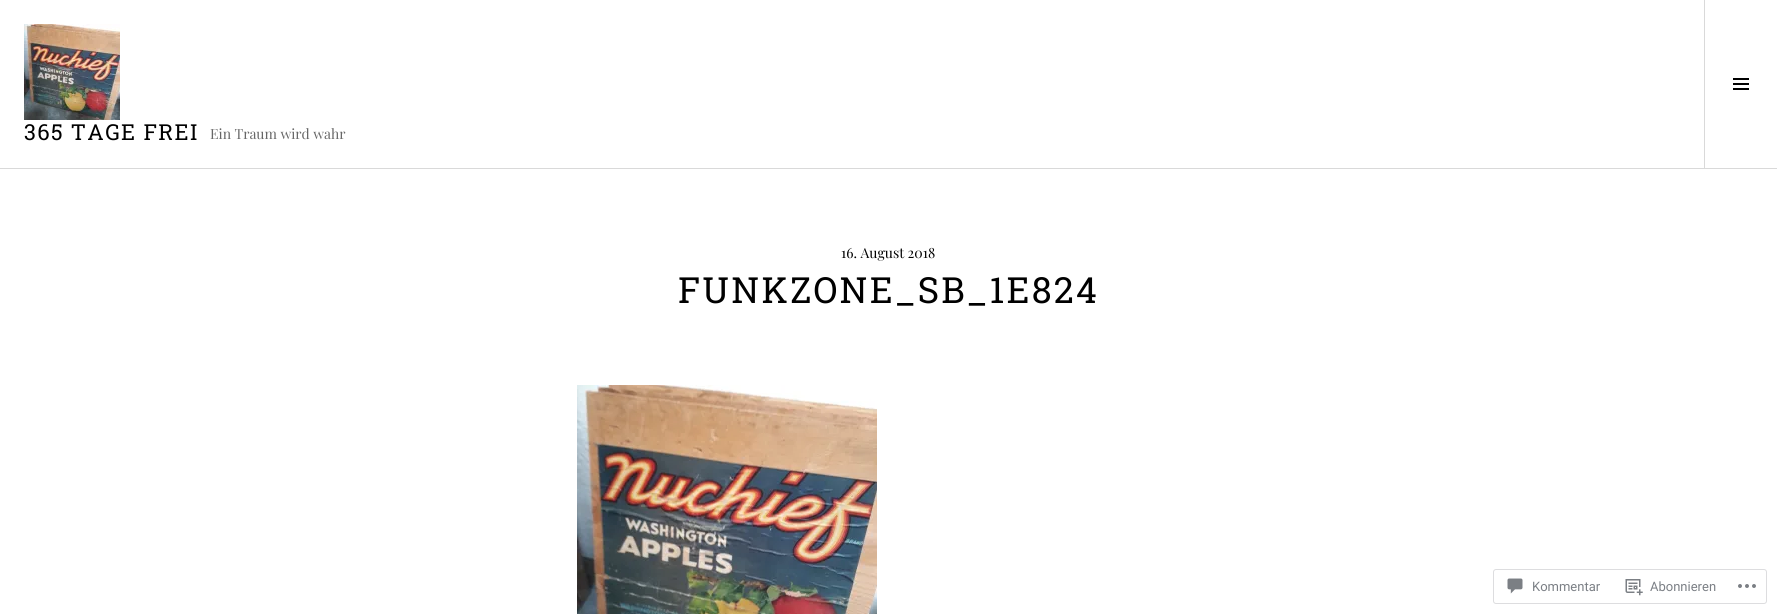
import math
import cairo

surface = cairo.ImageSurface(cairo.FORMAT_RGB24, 1777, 614)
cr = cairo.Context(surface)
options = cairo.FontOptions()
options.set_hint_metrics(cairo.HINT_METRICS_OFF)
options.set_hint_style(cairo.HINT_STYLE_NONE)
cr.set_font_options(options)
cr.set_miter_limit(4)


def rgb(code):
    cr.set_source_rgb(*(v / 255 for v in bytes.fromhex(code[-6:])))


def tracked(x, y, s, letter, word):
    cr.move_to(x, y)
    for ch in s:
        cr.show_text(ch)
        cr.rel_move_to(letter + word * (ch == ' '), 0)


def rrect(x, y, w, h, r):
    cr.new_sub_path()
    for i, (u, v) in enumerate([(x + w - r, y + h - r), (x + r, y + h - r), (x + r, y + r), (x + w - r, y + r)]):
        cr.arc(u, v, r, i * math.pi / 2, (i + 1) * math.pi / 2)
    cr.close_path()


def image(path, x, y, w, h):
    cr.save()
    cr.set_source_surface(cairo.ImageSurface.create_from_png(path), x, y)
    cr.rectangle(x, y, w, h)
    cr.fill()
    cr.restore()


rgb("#ffffff")
cr.paint()
rgb("#d9d9d9")
cr.rectangle(0, 168, 1777, 1)
cr.fill()
image("img/1.png", 24, 24, 96, 96)
cr.rectangle(1704, 0, 1, 168)
cr.fill()
image("img/2.png", 1733, 78, 16, 12)
image("img/3.png", 577, 385, 300, 229)
rrect(1493.5, 569.5, 273, 34, 2.5)
rgb("#dddddf")
cr.set_line_width(1)
cr.stroke()
image("img/4.png", 1507, 578, 16, 16)
image("img/5.png", 1625, 579, 18, 17)
image("img/6.png", 1738, 584, 18, 4)
cr.select_font_face("Roboto Slab")
cr.set_font_size(22)
rgb("#000000")
tracked(24, 140, "365 TAGE FREI", 1.4, 0)
cr.select_font_face("Playfair Display")
cr.set_font_size(14)
rgb("#666666")
cr.move_to(210, 139)
cr.show_text("Ein Traum wird wahr")
rgb("#000000")
cr.move_to(841, 258)
cr.show_text("16. August 2018")
cr.select_font_face("Roboto Slab")
cr.set_font_size(36)
tracked(678, 303, "FUNKZONE_SB_1E824", 2.25, 0)
cr.select_font_face("Roboto")
cr.set_font_size(13)
rgb("#7b7f85")
cr.move_to(1532, 591)
cr.show_text("Kommentar")
cr.move_to(1650, 591)
cr.show_text("Abonnieren")
surface.write_to_png("page.png")
